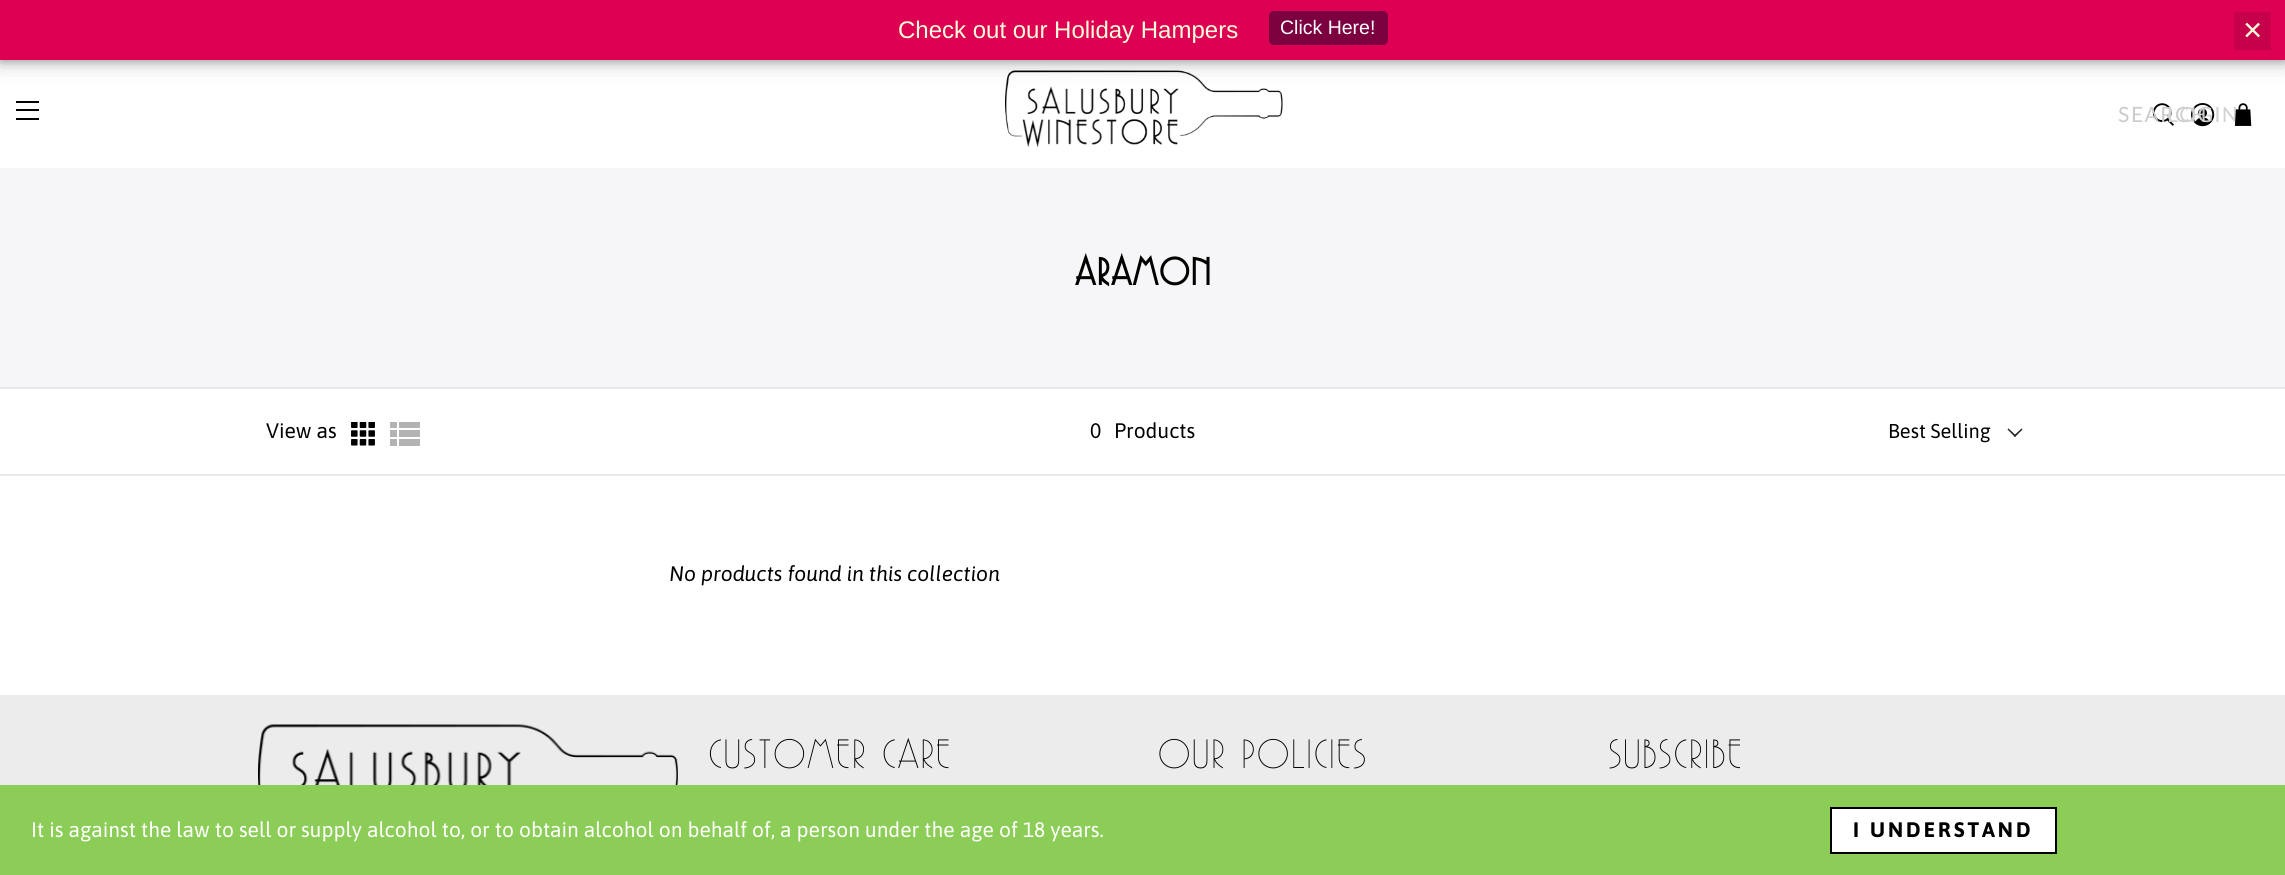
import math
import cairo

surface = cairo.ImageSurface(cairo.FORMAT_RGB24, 2285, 875)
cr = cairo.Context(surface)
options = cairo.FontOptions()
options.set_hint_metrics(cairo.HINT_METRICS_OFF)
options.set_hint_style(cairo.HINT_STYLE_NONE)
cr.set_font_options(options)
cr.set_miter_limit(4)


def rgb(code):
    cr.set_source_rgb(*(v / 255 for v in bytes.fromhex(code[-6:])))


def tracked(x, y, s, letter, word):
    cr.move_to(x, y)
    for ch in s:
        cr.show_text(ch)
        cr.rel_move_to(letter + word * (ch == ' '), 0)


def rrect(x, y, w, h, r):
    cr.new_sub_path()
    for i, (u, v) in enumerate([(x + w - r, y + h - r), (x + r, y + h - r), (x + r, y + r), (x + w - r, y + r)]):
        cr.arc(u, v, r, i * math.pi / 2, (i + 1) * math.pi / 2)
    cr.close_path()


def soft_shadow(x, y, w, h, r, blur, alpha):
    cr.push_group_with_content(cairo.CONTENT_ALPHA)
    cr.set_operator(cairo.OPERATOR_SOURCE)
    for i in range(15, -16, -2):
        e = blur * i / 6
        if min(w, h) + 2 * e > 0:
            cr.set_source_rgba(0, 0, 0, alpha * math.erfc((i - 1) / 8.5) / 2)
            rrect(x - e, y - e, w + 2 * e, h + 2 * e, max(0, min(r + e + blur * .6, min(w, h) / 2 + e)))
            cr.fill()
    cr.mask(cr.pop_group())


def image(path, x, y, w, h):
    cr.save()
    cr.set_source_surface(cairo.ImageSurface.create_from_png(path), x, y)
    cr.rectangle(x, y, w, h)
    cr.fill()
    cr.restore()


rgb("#ffffff")
cr.paint()
image("img/1.png", 1005, 70, 278, 77)
rgb("#000000")
soft_shadow(0, 2, 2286, 60, 0, 4, 0.2)
soft_shadow(0, 0, 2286, 60, 0, 11, 0.3)
rgb("#dd0053")
cr.rectangle(0, 0, 2285, 60)
cr.fill()
rgb("#7c0040")
rrect(1269, 11, 119, 34, 5)
cr.fill()
for x, y, w, h, color in [
    (2234, 12, 37, 38, "#c7004b"),
    (16, 101, 23, 2, "#000000"),
    (16, 109, 23, 2, "#000000"),
    (16, 118, 23, 2, "#000000"),
]:
    rgb(color)
    cr.rectangle(x, y, w, h)
    cr.fill()
image("img/2.png", 2152, 103, 22, 23)
image("img/4.png", 2191, 103, 24, 24)
for x, y, w, h, color in [
    (0, 168, 2285, 219, "#f6f6f8"),
    (0, 387, 2285, 2, "#e8e9eb"),
    (0, 474, 2285, 2, "#e8e9eb"),
]:
    rgb(color)
    cr.rectangle(x, y, w, h)
    cr.fill()
image("img/5.png", 351, 422, 24, 24)
for x, y, w, h, color in [
    (390, 422, 7, 6, "#b3b3b3"),
    (399, 422, 21, 6, "#b3b3b3"),
    (390, 430, 7, 7, "#b3b3b3"),
    (399, 430, 21, 7, "#b3b3b3"),
    (390, 439, 7, 7, "#b3b3b3"),
    (399, 439, 21, 7, "#b3b3b3"),
]:
    rgb(color)
    cr.rectangle(x, y, w, h)
    cr.fill()
rgb("#222222")
cr.new_path()
cr.move_to(2021.5, 428.5)
cr.line_to(2022.5, 429.5)
cr.line_to(2015, 437)
cr.line_to(2014, 435.5)
cr.close_path()
cr.fill()
cr.new_path()
cr.move_to(2008.5, 428.5)
cr.line_to(2016, 435.5)
cr.line_to(2015, 437)
cr.line_to(2007.5, 429.5)
cr.close_path()
cr.fill()
rgb("#ececec")
cr.rectangle(0, 695, 2285, 90)
cr.fill()
image("img/6.png", 258, 724, 420, 61)
rgb("#8ccd58")
cr.rectangle(0, 785, 2285, 90)
cr.fill()
rgb("#ffffff")
cr.rectangle(1831, 808, 225, 45)
cr.fill_preserve()
rgb("#000000")
cr.stroke()
cr.select_font_face("Liberation Sans")
cr.set_font_size(24)
rgb("#fcffdb")
cr.move_to(898, 38)
cr.show_text("Check out our Holiday Hampers")
cr.set_font_size(19.5)
rgb("#ffffff")
cr.move_to(1280, 34)
cr.show_text("Click Here!")
cr.set_font_size(33)
rgb("#fcffdb")
cr.move_to(2243, 41)
cr.show_text("×")
cr.select_font_face("Lato")
cr.set_font_size(21)
rgb("#cbcbcb")
tracked(2118, 122, "SEARCH", 1.5, 0)
rgb("#d1d1d1")
tracked(2167, 122, "LOGIN", 1.5, 0)
image("img/3.png", 2234, 103, 18, 23)
cr.select_font_face("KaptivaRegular", cairo.FONT_SLANT_NORMAL, cairo.FONT_WEIGHT_BOLD)
cr.set_font_size(45)
rgb("#000000")
tracked(1075, 285, "ARAMON", 1.5, 0)
cr.select_font_face("Asap")
cr.set_font_size(21)
for x, y, s in [
    (266, 438, "View as"),
    (1090, 438, "0"),
    (1114, 438, "Products"),
]:
    cr.move_to(x, y)
    cr.show_text(s)
cr.set_font_size(20)
cr.move_to(1888, 438)
cr.show_text("Best Selling")
cr.select_font_face("Asap", cairo.FONT_SLANT_ITALIC)
cr.set_font_size(21)
cr.move_to(669, 581)
cr.show_text("No products found in this collection")
cr.select_font_face("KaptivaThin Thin")
cr.set_font_size(48)
for x, y, s in [
    (708, 768, "CUSTOMER CARE"),
    (1158, 768, "OUR POLICIES"),
    (1608, 768, "SUBSCRIBE"),
]:
    tracked(x, y, s, 1.5, 0)
cr.select_font_face("Asap")
cr.set_font_size(21)
rgb("#ffffff")
cr.move_to(31, 837)
cr.show_text("It is against the law to sell or supply alcohol to, or to obtain alcohol on behalf of, a person under the age of 18 years.")
cr.select_font_face("Asap", cairo.FONT_SLANT_NORMAL, cairo.FONT_WEIGHT_BOLD)
rgb("#000000")
tracked(1853, 837, "I UNDERSTAND", 3, 0)
surface.write_to_png("page.png")
